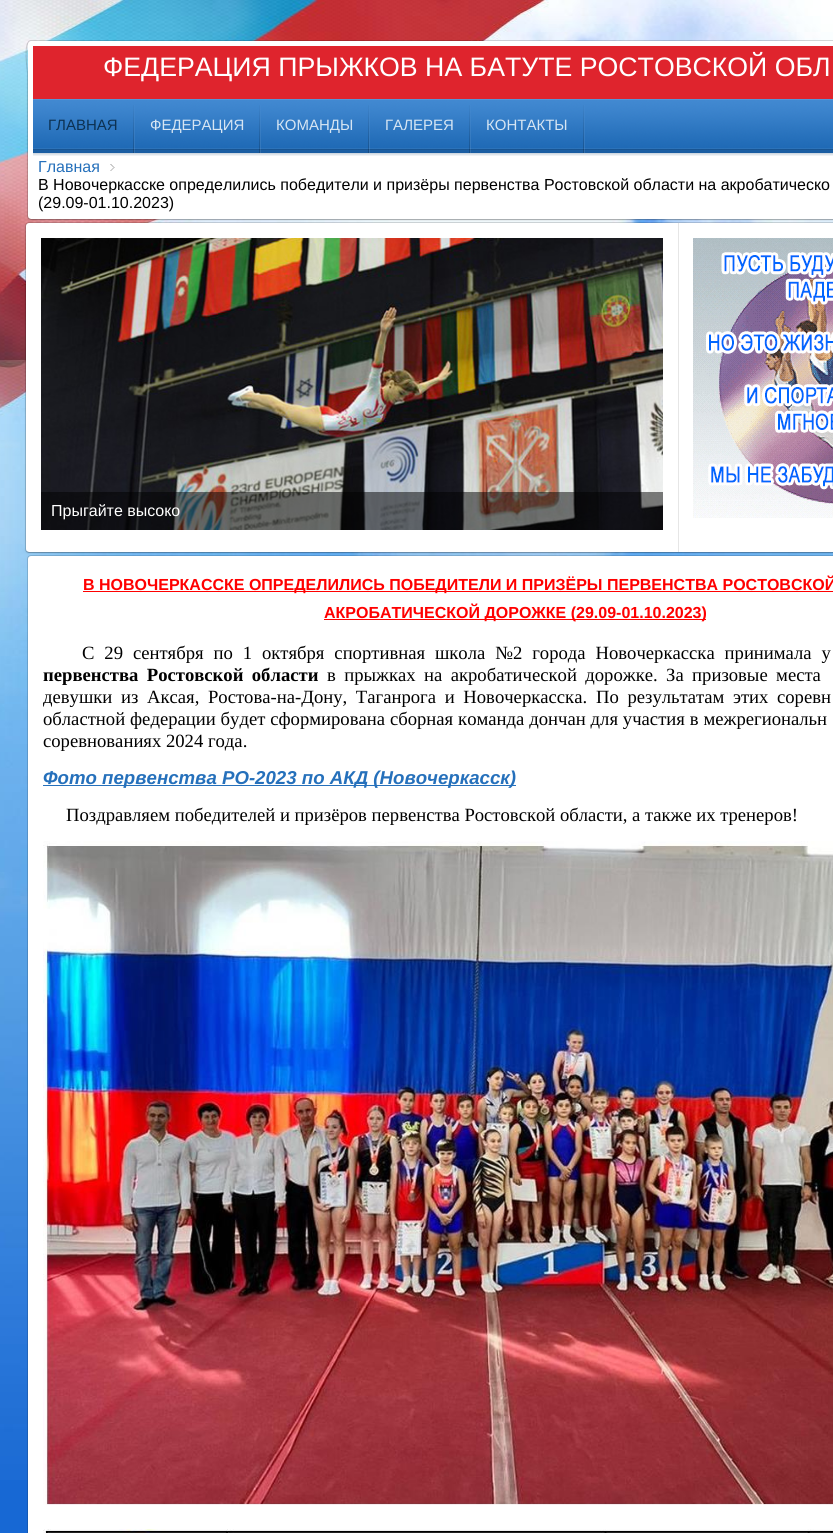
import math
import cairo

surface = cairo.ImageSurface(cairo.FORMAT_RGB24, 833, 1533)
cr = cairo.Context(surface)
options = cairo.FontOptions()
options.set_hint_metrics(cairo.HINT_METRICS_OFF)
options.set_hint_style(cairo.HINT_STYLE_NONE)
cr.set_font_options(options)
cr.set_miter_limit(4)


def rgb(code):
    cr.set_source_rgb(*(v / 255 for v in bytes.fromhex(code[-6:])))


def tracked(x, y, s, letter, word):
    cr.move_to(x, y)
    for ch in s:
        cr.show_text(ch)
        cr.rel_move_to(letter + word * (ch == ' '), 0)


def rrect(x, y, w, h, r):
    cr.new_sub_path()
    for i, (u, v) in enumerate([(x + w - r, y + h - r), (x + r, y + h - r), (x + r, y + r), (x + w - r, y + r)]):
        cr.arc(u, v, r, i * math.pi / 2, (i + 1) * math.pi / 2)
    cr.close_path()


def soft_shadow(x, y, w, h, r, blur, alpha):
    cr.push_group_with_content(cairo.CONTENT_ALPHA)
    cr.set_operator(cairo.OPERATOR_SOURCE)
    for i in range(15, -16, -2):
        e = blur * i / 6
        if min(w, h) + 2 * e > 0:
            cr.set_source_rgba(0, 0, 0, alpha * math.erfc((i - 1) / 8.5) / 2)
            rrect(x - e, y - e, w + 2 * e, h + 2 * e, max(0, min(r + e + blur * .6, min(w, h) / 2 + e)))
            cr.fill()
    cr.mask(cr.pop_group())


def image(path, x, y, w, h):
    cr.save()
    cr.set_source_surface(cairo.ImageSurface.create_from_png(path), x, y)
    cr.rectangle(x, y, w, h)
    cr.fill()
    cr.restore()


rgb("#1768d4")
cr.paint()
image("img/1.png", 0, 0, 833, 1480)
rgb("#000000")
soft_shadow(25, 223, 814, 331, 4, 0.5, 0.06)
rgb("#ffffff")
rrect(26, 223, 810, 329, 3)
cr.fill()
cr.new_path()
cr.move_to(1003.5, 551.5)
cr.line_to(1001, 552.5)
cr.line_to(29, 552.5)
cr.line_to(26.5, 551.5)
cr.set_source_rgba(0, 0, 0, 0.25)
cr.set_line_width(1)
cr.stroke()
cr.new_path()
cr.move_to(26.5, 551.5)
cr.curve_to(26, 551, 25.5, 550, 25.5, 549)
cr.line_to(25.5, 226)
cr.curve_to(25.5, 225, 26, 224, 26.5, 223.5)
cr.curve_to(27, 223, 28, 222.5, 29, 222.5)
cr.line_to(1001, 222.5)
cr.curve_to(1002, 222.5, 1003, 223, 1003.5, 223.5)
cr.curve_to(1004, 224, 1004.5, 225, 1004.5, 226)
cr.line_to(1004.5, 549)
cr.curve_to(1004.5, 550, 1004, 551, 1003.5, 551.5)
cr.set_source_rgba(0, 0, 0, 0.15)
cr.stroke()
rgb("#000000")
soft_shadow(27, 41, 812, 180, 4, 0.5, 0.06)
rgb("#ffffff")
rrect(28, 41, 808, 178, 3)
cr.fill()
cr.new_path()
cr.move_to(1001.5, 218.5)
cr.line_to(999, 219.5)
cr.line_to(31, 219.5)
cr.line_to(28.5, 218.5)
cr.set_source_rgba(0, 0, 0, 0.25)
cr.stroke()
cr.new_path()
cr.move_to(28.5, 218.5)
cr.line_to(27.5, 216)
cr.line_to(27.5, 72.5)
cr.curve_to(27.5, 71.5, 22.5, 40.5, 31, 40.5)
cr.line_to(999, 40.5)
cr.curve_to(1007.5, 40.5, 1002.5, 71.5, 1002.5, 72.5)
cr.line_to(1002.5, 216)
cr.line_to(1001.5, 218.5)
cr.set_source_rgba(0, 0, 0, 0.15)
cr.stroke()
rgb("#df242d")
cr.rectangle(33, 46, 800, 53)
cr.fill()
image("img/2.png", 33, 99, 800, 57)
image("img/3.png", 133, 105, 2, 48)
image("img/4.png", 259, 105, 2, 48)
image("img/5.png", 368, 105, 2, 48)
image("img/6.png", 469, 105, 2, 48)
image("img/3.png", 583, 105, 2, 48)
image("img/7.png", 110, 164, 5, 7)
image("img/8.png", 41, 238, 622, 292)
cr.set_source_rgba(0, 0, 0, 0.5)
cr.rectangle(41, 492, 622, 38)
cr.fill()
rgb("#e6e6e6")
cr.rectangle(678, 223, 1, 329)
cr.fill()
image("img/9.png", 693, 238, 140, 280)
rgb("#ffffff")
rrect(28, 556, 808, 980, 3)
cr.fill()
cr.new_path()
cr.move_to(28.5, 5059.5)
cr.line_to(27.5, 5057)
cr.line_to(27.5, 559)
cr.curve_to(27.5, 557, 29, 555.5, 31, 555.5)
cr.line_to(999, 555.5)
cr.curve_to(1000.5, 555.5, 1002, 556.5, 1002.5, 558)
cr.line_to(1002.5, 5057)
cr.line_to(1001.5, 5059.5)
cr.set_source_rgba(0, 0, 0, 0.15)
cr.stroke()
for x, y, w, h, color in [
    (83, 591, 750, 1, "#ff0000"),
    (324, 619, 382, 1, "#ff0000"),
    (43, 785, 473, 1, "#2570bb"),
]:
    rgb(color)
    cr.rectangle(x, y, w, h)
    cr.fill()
image("img/10.png", 43, 841, 790, 664)
image("img/11.png", 43, 1529, 790, 4)
cr.select_font_face("Liberation Sans")
cr.set_font_size(26.7)
rgb("#ffffff")
cr.move_to(103, 76)
cr.show_text("ФЕДЕРАЦИЯ ПРЫЖКОВ НА БАТУТЕ РОСТОВСКОЙ ОБЛ")
cr.set_font_size(15)
rgb("#0c3152")
cr.move_to(48, 130)
cr.show_text("ГЛАВНАЯ")
rgb("#d6e5f3")
for x, y, s in [
    (150, 130, "ФЕДЕРАЦИЯ"),
    (276, 130, "КОМАНДЫ"),
    (385, 130, "ГАЛЕРЕЯ"),
    (486, 130, "КОНТАКТЫ"),
]:
    cr.move_to(x, y)
    cr.show_text(s)
cr.set_font_size(16)
rgb("#2570bb")
cr.move_to(38, 172)
cr.show_text("Главная")
rgb("#000000")
cr.move_to(38, 190)
cr.show_text("В Новочеркасске определились победители и призёры первенства Ростовской области на акробатическо")
cr.move_to(38, 208)
cr.show_text("(29.09-01.10.2023)")
rgb("#ffffff")
cr.move_to(51, 516)
cr.show_text("Прыгайте высоко")
cr.select_font_face("Liberation Sans", cairo.FONT_SLANT_NORMAL, cairo.FONT_WEIGHT_BOLD)
rgb("#ff0000")
cr.move_to(83, 590)
cr.show_text("В НОВОЧЕРКАССКЕ ОПРЕДЕЛИЛИСЬ ПОБЕДИТЕЛИ И ПРИЗЁРЫ ПЕРВЕНСТВА РОСТОВСКОЙ")
cr.move_to(324, 618)
cr.show_text("АКРОБАТИЧЕСКОЙ ДОРОЖКЕ (29.09-01.10.2023)")
cr.select_font_face("Liberation Serif")
cr.set_font_size(18.65)
rgb("#000000")
tracked(82, 659, "С 29 сентября по 1 октября спортивная школа №2 города Новочеркасска принимала у", 0, 5.25)
cr.select_font_face("Liberation Serif", cairo.FONT_SLANT_NORMAL, cairo.FONT_WEIGHT_BOLD)
tracked(43, 681, "первенства Ростовской области", 0, 3.75)
cr.select_font_face("Liberation Serif")
tracked(327, 681, "в прыжках на акробатической дорожке. За призовые места", 0, 3.75)
tracked(43, 703, "девушки из Аксая, Ростова-на-Дону, Таганрога и Новочеркасска.", 0, 4)
tracked(596, 703, "По результатам этих соревн", 0, 4)
tracked(43, 725, "областной федерации будет сформирована сборная команда дончан для участия в межрегиональн", 0, 0.25)
cr.move_to(43, 747)
cr.show_text("соревнованиях 2024 года.")
cr.select_font_face("Liberation Sans", cairo.FONT_SLANT_ITALIC, cairo.FONT_WEIGHT_BOLD)
rgb("#2570bb")
cr.move_to(43, 784)
cr.show_text("Фото первенства РО-2023 по АКД (Новочеркасск)")
cr.select_font_face("Liberation Serif")
rgb("#000000")
cr.move_to(66, 821)
cr.show_text("Поздравляем победителей и призёров первенства Ростовской области, а также их тренеров!")
surface.write_to_png("page.png")
